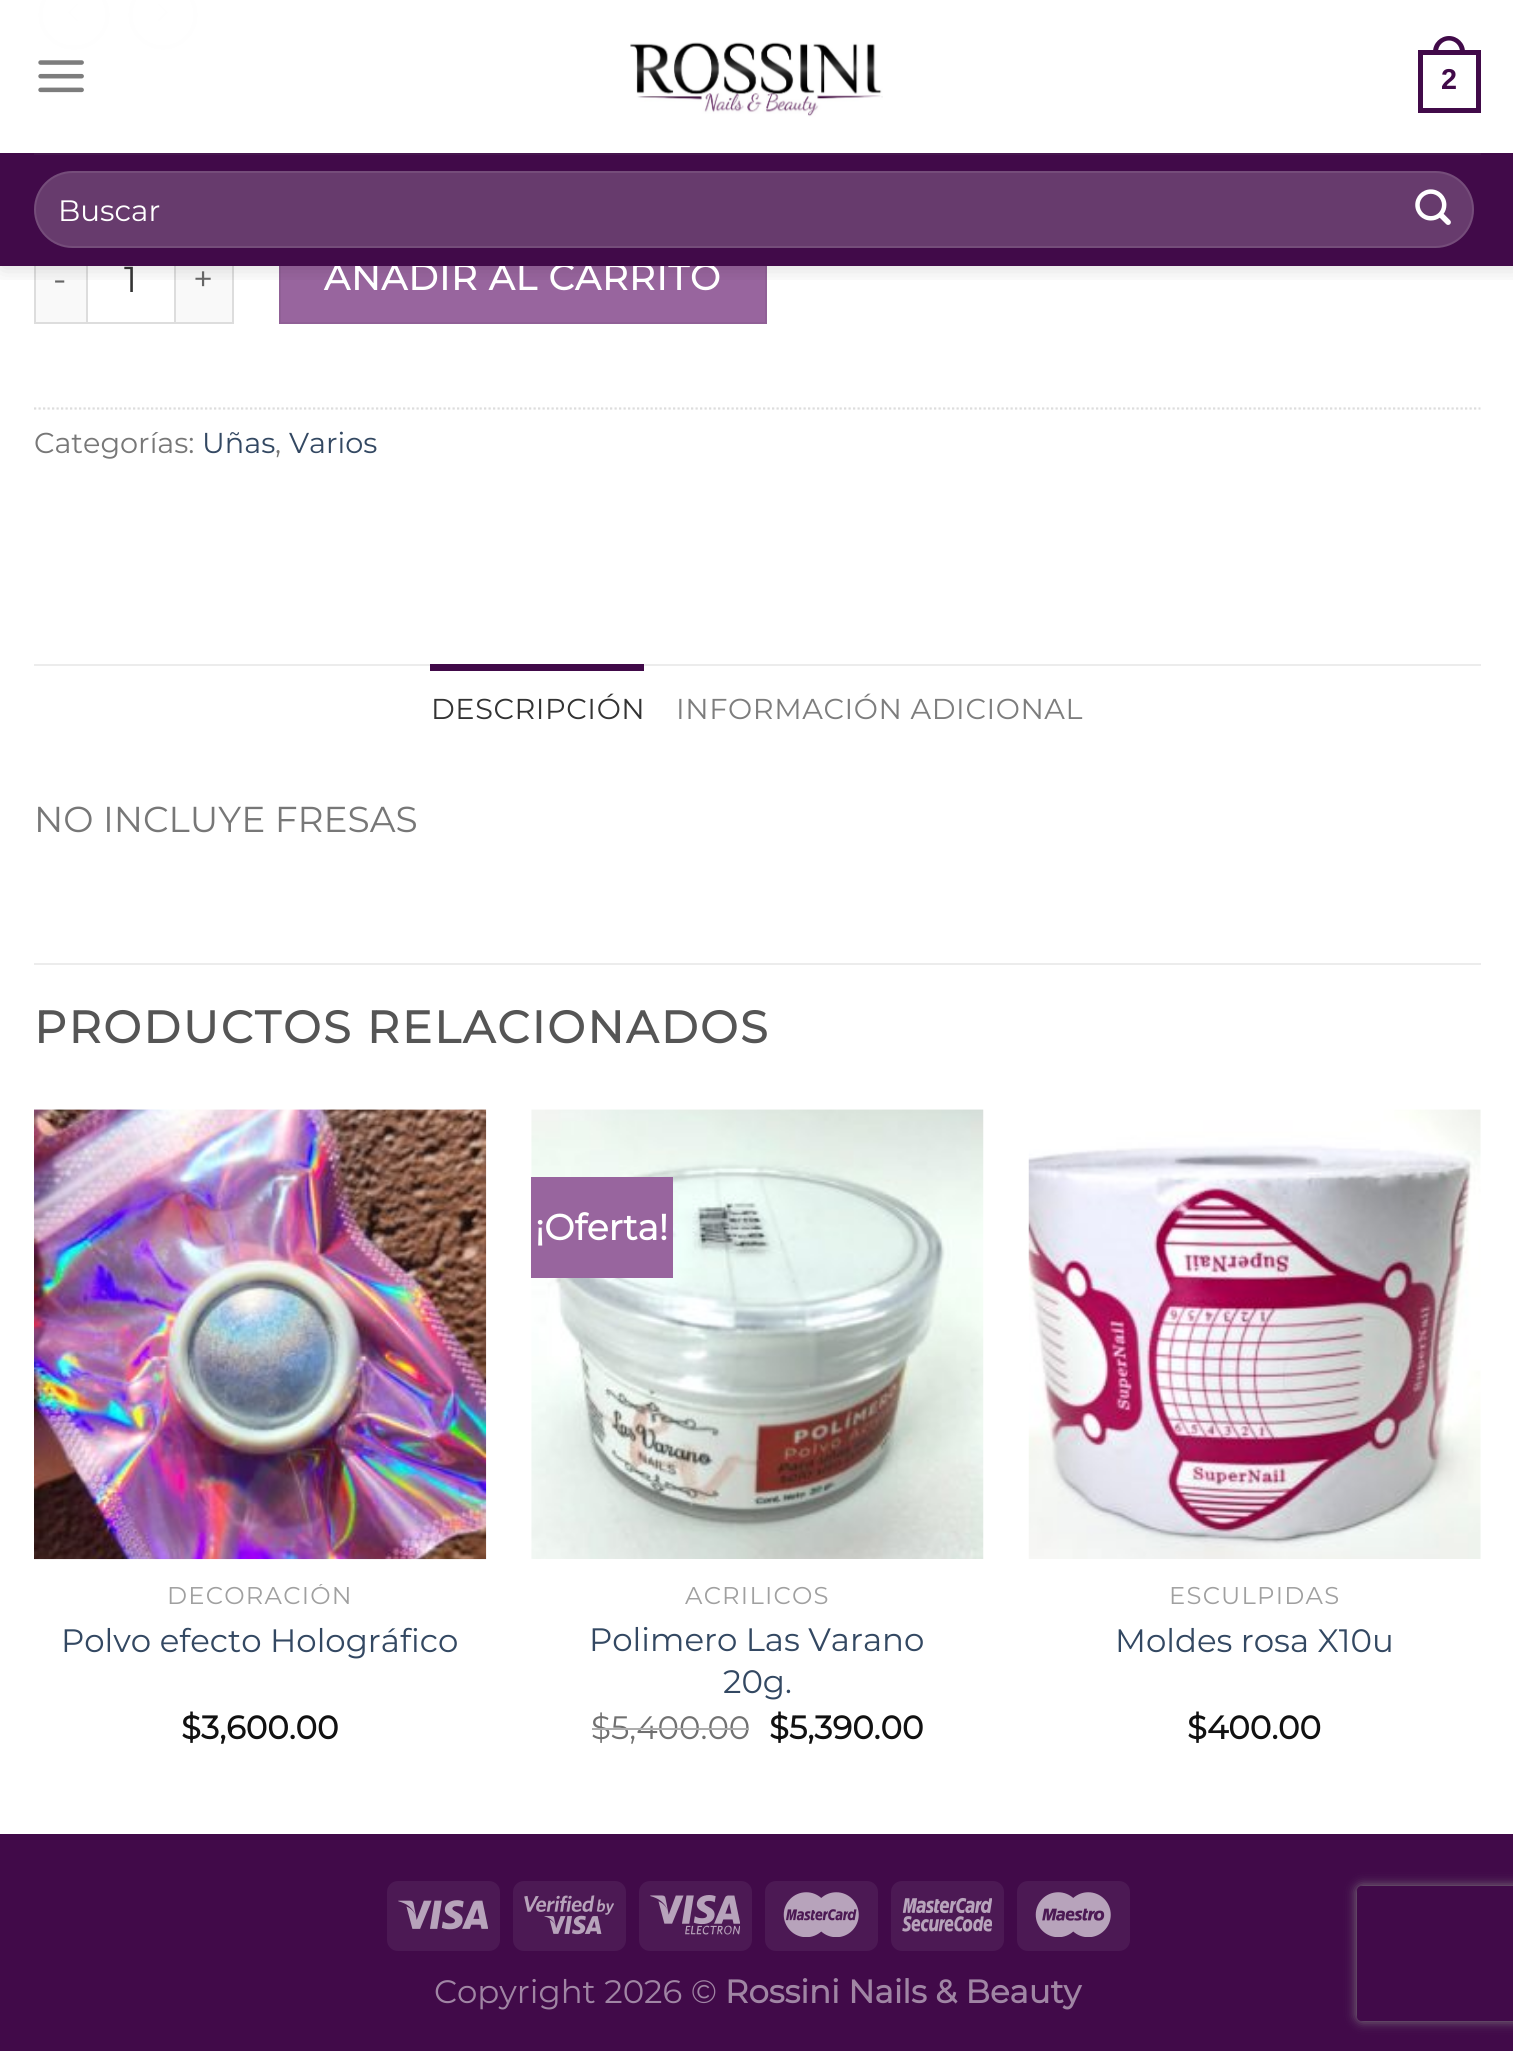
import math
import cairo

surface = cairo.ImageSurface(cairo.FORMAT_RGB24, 1513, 2051)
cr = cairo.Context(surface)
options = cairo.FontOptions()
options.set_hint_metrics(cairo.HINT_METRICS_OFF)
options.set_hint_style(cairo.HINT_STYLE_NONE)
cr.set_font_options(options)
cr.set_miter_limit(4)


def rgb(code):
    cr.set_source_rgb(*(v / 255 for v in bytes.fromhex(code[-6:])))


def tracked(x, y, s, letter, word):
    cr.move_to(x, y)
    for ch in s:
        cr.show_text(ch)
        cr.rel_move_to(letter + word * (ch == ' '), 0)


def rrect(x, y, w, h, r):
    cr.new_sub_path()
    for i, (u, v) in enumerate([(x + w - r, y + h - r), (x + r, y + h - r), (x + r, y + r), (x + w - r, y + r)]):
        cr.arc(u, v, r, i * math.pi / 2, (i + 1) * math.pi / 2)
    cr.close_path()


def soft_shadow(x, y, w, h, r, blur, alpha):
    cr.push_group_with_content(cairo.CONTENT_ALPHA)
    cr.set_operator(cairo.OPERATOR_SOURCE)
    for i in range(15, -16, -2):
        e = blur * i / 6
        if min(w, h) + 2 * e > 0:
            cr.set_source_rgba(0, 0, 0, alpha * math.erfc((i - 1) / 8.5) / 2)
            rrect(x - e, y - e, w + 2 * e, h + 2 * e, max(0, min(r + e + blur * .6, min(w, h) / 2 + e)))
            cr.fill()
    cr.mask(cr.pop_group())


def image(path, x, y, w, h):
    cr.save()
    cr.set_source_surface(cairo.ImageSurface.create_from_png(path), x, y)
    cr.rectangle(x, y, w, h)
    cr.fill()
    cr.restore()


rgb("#ffffff")
cr.paint()
rrect(40.5, -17.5, 67, 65, 32.5)
rgb("#c0c0c0")
cr.set_line_width(5)
cr.stroke()
image("img/4.png", 67, 3, 12, 19)
cr.arc(163, 15, 32.5, 0, 2 * math.pi)
cr.stroke()
image("img/5.png", 157, 3, 12, 19)
for x, y, w, h, color in [
    (36, 266, 50, 56, "#f9f9f9"),
    (34, 322, 52, 2, "#dddddd"),
    (34, 266, 2, 58, "#dddddd"),
]:
    rgb(color)
    cr.rectangle(x, y, w, h)
    cr.fill()
cr.rectangle(87, 235, 88, 88)
cr.set_line_width(2)
cr.stroke()
for x, y, w, h, color in [
    (176, 266, 56, 56, "#f9f9f9"),
    (232, 266, 2, 58, "#dddddd"),
    (281, 266, 484, 56, "#98659e"),
]:
    rgb(color)
    cr.rectangle(x, y, w, h)
    cr.fill()
cr.rectangle(280, 235, 486, 88)
rgb("#906096")
cr.stroke()
cr.save()
cr.rectangle(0, 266, 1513, 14)
cr.clip()
rgb("#000000")
soft_shadow(2, 2, 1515, 266, 0, 11, 0.15)
cr.restore()
cr.set_source_rgba(1, 1, 1, 0.9)
cr.rectangle(38, 0, 160, 50)
cr.fill()
cr.rectangle(38, 0, 160, 50)
cr.fill()
image("img/1.png", 38, 60, 46, 33)
image("img/2.png", 630, 42, 253, 75)
cr.rectangle(1420.5, 52.5, 58, 58)
rgb("#410a49")
cr.set_line_width(5)
cr.stroke()
cr.set_fill_rule(cairo.FILL_RULE_EVEN_ODD)
cr.new_path()
cr.move_to(1449, 36)
cr.curve_to(1457.5, 36, 1465, 43, 1465, 52)
cr.line_to(1465, 54)
cr.line_to(1433, 54)
cr.line_to(1433, 52)
cr.curve_to(1433, 43, 1440.5, 36, 1449, 36)
cr.close_path()
cr.move_to(1449, 40.5)
cr.curve_to(1455, 40.5, 1460, 45.5, 1460, 52)
cr.line_to(1460, 54)
cr.line_to(1438, 54)
cr.line_to(1438, 52)
cr.curve_to(1438, 45.5, 1443, 40.5, 1449, 40.5)
cr.close_path()
cr.fill()
rgb("#dddddd")
cr.rectangle(176, 322, 58, 2)
cr.fill()
cr.new_path()
cr.move_to(34, 408.5)
cr.line_to(1480.5, 408.5)
cr.set_line_width(2.2)
cr.set_dash([2.25, 2.25])
cr.stroke()
for x, y, w, h, color in [
    (34, 664, 1447, 2, "#ececec"),
    (430, 664, 214, 7, "#410a49"),
    (34, 963, 1447, 2, "#ececec"),
]:
    rgb(color)
    cr.rectangle(x, y, w, h)
    cr.fill()
image("img/6.png", 34, 1109, 453, 451)
image("img/7.png", 531, 1109, 453, 450)
rgb("#98659e")
cr.rectangle(531, 1177, 142, 101)
cr.fill()
image("img/8.png", 1028, 1109, 453, 450)
rgb("#410a49")
cr.rectangle(0, 1834, 1513, 217)
cr.fill()
rgb("#4c1954")
rrect(387, 1881, 113, 70, 11)
cr.fill()
image("img/9.png", 398, 1900, 90, 30)
rrect(513, 1881, 113, 70, 11)
cr.fill()
image("img/10.png", 524, 1895, 90, 40)
rrect(639, 1881, 113, 70, 11)
cr.fill()
image("img/11.png", 650, 1895, 90, 40)
rrect(765, 1881, 113, 70, 11)
cr.fill()
image("img/12.png", 783, 1892, 76, 45)
rrect(891, 1881, 113, 70, 11)
cr.fill()
image("img/13.png", 902, 1897, 90, 35)
rrect(1017, 1881, 113, 70, 11)
cr.fill()
image("img/14.png", 1035, 1892, 76, 45)
cr.save()
cr.new_path()
cr.move_to(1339, 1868)
cr.line_to(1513, 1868)
cr.line_to(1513, 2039)
cr.line_to(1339, 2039)
cr.close_path()
cr.move_to(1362, 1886)
cr.line_to(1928, 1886)
cr.curve_to(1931, 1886, 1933, 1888, 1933, 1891)
cr.line_to(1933, 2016)
cr.curve_to(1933, 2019, 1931, 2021, 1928, 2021)
cr.line_to(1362, 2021)
cr.curve_to(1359, 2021, 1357, 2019, 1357, 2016)
cr.line_to(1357, 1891)
cr.curve_to(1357, 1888, 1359, 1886, 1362, 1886)
cr.close_path()
cr.clip()
rgb("#808080")
soft_shadow(1357, 1886, 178, 135, 5, 5.5, 1)
cr.restore()
cr.select_font_face("Liberation Sans", cairo.FONT_SLANT_NORMAL, cairo.FONT_WEIGHT_BOLD)
cr.set_font_size(28.75)
rgb("#410a49")
cr.move_to(1441, 89)
cr.show_text("2")
cr.select_font_face("Montserrat Thin")
cr.set_font_size(35)
rgb("#666666")
tracked(53, 291, "-", 1, 0)
cr.set_font_size(36)
rgb("#333333")
cr.move_to(124, 292)
cr.show_text("1")
cr.set_font_size(35)
rgb("#666666")
tracked(193, 291, "+", 1, 0)
cr.select_font_face("Montserrat", cairo.FONT_SLANT_NORMAL, cairo.FONT_WEIGHT_BOLD)
cr.set_font_size(36)
rgb("#ffffff")
tracked(324, 290, "AÑADIR AL CARRITO", 1.1, 0)
rgb("#410a49")
cr.rectangle(0, 153, 1513, 113)
cr.fill()
rgb("#46154e")
cr.rectangle(34, 153, 1447, 2)
cr.fill()
rgb("#673b6d")
rrect(34, 171, 1440, 77, 38.5)
cr.fill()
rrect(35, 172, 1438, 75, 37.5)
cr.set_source_rgba(1, 1, 1, 0.09)
cr.set_line_width(2)
cr.set_dash([])
cr.stroke()
image("img/3.png", 1415, 189, 36, 36)
cr.select_font_face("Montserrat Thin")
cr.set_font_size(29.5)
rgb("#ffffff")
cr.move_to(58, 221)
cr.show_text("Buscar")
cr.set_font_size(28.75)
rgb("#777777")
cr.move_to(34, 453)
cr.show_text("Categorías:")
rgb("#334862")
cr.move_to(202, 453)
cr.show_text("Uñas")
rgb("#777777")
cr.move_to(275, 453)
cr.show_text(",")
rgb("#334862")
cr.move_to(289, 453)
cr.show_text("Varios")
rgb("#333333")
tracked(431, 719, "DESCRIPCIÓN", 0.6, 0)
rgb("#7d7d7d")
tracked(676, 719, "INFORMACIÓN ADICIONAL", 0.6, 0)
cr.set_font_size(36)
rgb("#777777")
cr.move_to(34, 832)
cr.show_text("NO INCLUYE FRESAS")
cr.select_font_face("Montserrat", cairo.FONT_SLANT_NORMAL, cairo.FONT_WEIGHT_BOLD)
cr.set_font_size(45)
rgb("#555555")
tracked(34, 1043, "PRODUCTOS RELACIONADOS", 2.25, 0)
cr.save()
cr.set_fill_rule(cairo.FILL_RULE_WINDING)
cr.rectangle(56, 1584, 408, 29)
cr.clip()
cr.select_font_face("Montserrat Thin")
cr.set_font_size(24.25)
rgb("#a0a0a0")
tracked(167, 1604, "DECORACIÓN", 1.25, 0)
cr.restore()
cr.select_font_face("Montserrat Thin")
cr.set_font_size(32.4)
rgb("#334862")
cr.move_to(61, 1652)
cr.show_text("Polvo efecto Holográfico")
cr.select_font_face("Montserrat", cairo.FONT_SLANT_NORMAL, cairo.FONT_WEIGHT_BOLD)
rgb("#111111")
cr.move_to(181, 1739)
cr.show_text("$3,600.00")
cr.set_font_size(36)
rgb("#ffffff")
cr.move_to(535, 1240)
cr.show_text("¡Oferta!")
cr.select_font_face("Montserrat Thin")
cr.set_font_size(24.25)
rgb("#a0a0a0")
tracked(685, 1604, "ACRILICOS", 1.25, 0)
cr.set_font_size(32.4)
rgb("#334862")
cr.move_to(589, 1651)
cr.show_text("Polimero Las Varano")
cr.move_to(723, 1693)
cr.show_text("20g.")
rgb("#707070")
cr.move_to(591, 1739)
cr.show_text("$")
rgb("#adadad")
cr.rectangle(592, 1728, 20, 2)
cr.fill()
rgb("#707070")
cr.move_to(611, 1739)
cr.show_text("5,400.00")
rgb("#adadad")
cr.rectangle(612, 1728, 137, 2)
cr.fill()
cr.select_font_face("Montserrat", cairo.FONT_SLANT_NORMAL, cairo.FONT_WEIGHT_BOLD)
rgb("#111111")
cr.move_to(769, 1739)
cr.show_text("$5,390.00")
cr.select_font_face("Montserrat Thin")
cr.set_font_size(24.25)
rgb("#a0a0a0")
tracked(1169, 1604, "ESCULPIDAS", 1.25, 0)
cr.set_font_size(32.4)
rgb("#334862")
cr.move_to(1115, 1652)
cr.show_text("Moldes rosa X10u")
cr.select_font_face("Montserrat", cairo.FONT_SLANT_NORMAL, cairo.FONT_WEIGHT_BOLD)
rgb("#111111")
cr.move_to(1187, 1739)
cr.show_text("$400.00")
cr.select_font_face("Montserrat Thin")
rgb("#a085a4")
cr.move_to(434, 2003)
cr.show_text("Copyright 2026 ©")
cr.select_font_face("Montserrat", cairo.FONT_SLANT_NORMAL, cairo.FONT_WEIGHT_BOLD)
cr.move_to(725, 2003)
cr.show_text("Rossini Nails & Beauty")
surface.write_to_png("page.png")
